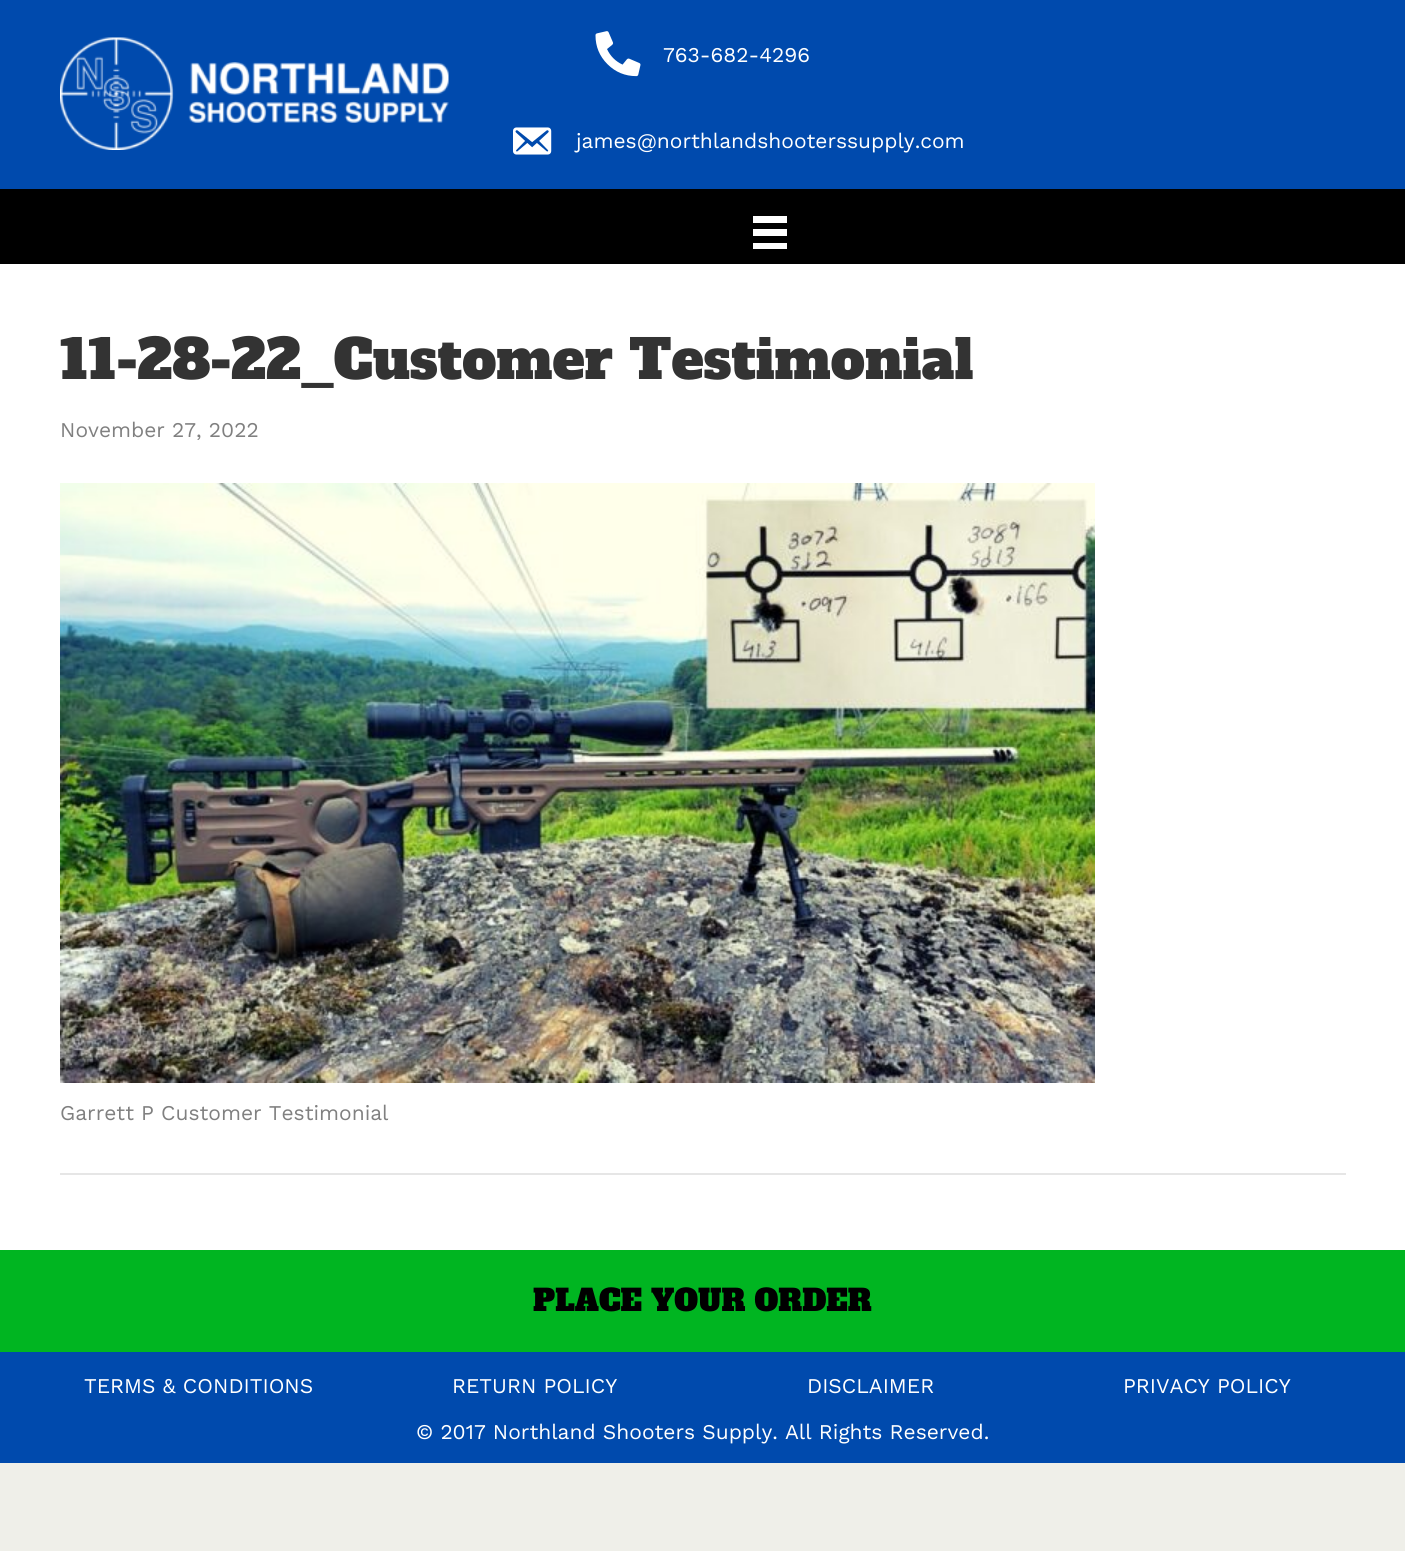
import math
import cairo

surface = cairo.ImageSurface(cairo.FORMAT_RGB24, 1405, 1551)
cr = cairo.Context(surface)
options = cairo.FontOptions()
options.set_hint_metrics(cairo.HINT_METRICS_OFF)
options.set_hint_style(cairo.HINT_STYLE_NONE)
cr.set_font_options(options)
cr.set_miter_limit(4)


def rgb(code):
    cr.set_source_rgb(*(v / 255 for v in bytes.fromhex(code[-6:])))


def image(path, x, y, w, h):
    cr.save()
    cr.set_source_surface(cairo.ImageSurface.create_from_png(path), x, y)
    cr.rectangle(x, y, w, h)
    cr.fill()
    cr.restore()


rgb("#efefe9")
cr.paint()
rgb("#004aad")
cr.rectangle(0, 0, 1405, 189)
cr.fill()
image("img/1.png", 60, 37, 389, 113)
image("img/2.png", 595, 31, 46, 46)
image("img/3.png", 513, 127, 39, 28)
for x, y, w, h, color in [
    (0, 189, 1405, 75, "#000000"),
    (753, 216, 34, 7, "#ffffff"),
    (753, 229, 34, 7, "#ffffff"),
    (753, 243, 34, 6, "#ffffff"),
    (0, 264, 1405, 986, "#ffffff"),
]:
    rgb(color)
    cr.rectangle(x, y, w, h)
    cr.fill()
image("img/4.png", 60, 483, 1035, 600)
for x, y, w, h, color in [
    (60, 1173, 1286, 2, "#e6e6e6"),
    (0, 1250, 1405, 102, "#00b521"),
    (0, 1352, 1405, 111, "#004aad"),
]:
    rgb(color)
    cr.rectangle(x, y, w, h)
    cr.fill()
cr.select_font_face("Work Sans")
cr.set_font_size(21)
rgb("#ffffff")
cr.move_to(663, 62)
cr.show_text("763-682-4296")
cr.move_to(576, 148)
cr.show_text("james@northlandshooterssupply.com")
cr.select_font_face("Alfa Slab One")
cr.set_font_size(54)
rgb("#333333")
cr.move_to(60, 379)
cr.show_text("11-28-22_Customer Testimonial")
cr.select_font_face("Work Sans")
cr.set_font_size(21)
rgb("#808080")
cr.move_to(60, 437)
cr.show_text("November 27, 2022")
cr.move_to(60, 1120)
cr.show_text("Garrett P Customer Testimonial")
cr.select_font_face("Alfa Slab One")
cr.set_font_size(30)
rgb("#000000")
cr.move_to(533, 1311)
cr.show_text("PLACE YOUR ORDER")
cr.select_font_face("Work Sans")
cr.set_font_size(21)
rgb("#ffffff")
for x, y, s in [
    (84, 1393, "TERMS & CONDITIONS"),
    (452, 1393, "RETURN POLICY"),
    (807, 1393, "DISCLAIMER"),
    (1123, 1393, "PRIVACY POLICY"),
    (416, 1439, "© 2017 Northland Shooters Supply. All Rights Reserved."),
]:
    cr.move_to(x, y)
    cr.show_text(s)
surface.write_to_png("page.png")
